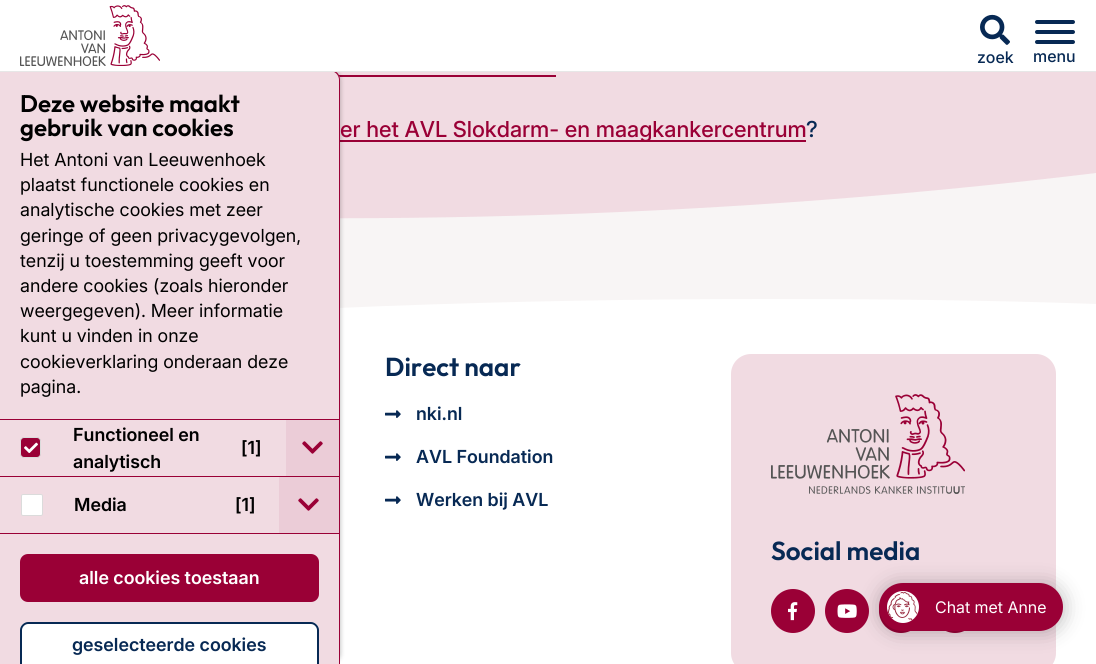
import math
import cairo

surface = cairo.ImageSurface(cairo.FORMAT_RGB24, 1096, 664)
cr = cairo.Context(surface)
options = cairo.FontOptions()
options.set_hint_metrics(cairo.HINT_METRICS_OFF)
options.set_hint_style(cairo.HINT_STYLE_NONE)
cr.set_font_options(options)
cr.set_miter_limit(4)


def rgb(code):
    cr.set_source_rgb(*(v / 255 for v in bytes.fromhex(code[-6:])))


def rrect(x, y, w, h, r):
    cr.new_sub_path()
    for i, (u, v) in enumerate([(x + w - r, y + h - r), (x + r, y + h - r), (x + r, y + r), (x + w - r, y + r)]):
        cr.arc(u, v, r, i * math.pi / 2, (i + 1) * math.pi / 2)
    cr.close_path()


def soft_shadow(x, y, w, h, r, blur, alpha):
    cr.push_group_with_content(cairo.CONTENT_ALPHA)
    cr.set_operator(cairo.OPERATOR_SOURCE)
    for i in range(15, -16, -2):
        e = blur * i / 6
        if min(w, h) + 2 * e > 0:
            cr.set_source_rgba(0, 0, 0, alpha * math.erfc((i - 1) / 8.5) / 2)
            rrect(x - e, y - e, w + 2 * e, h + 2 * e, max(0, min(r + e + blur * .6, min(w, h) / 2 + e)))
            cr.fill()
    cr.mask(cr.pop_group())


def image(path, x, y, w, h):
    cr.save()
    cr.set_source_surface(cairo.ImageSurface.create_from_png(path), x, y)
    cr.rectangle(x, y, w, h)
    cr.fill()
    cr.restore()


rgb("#f8f5f5")
cr.paint()
rgb("#f1dbe2")
cr.new_path()
cr.move_to(0, -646)
cr.line_to(1096, -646)
cr.line_to(1096, 173)
cr.curve_to(733, 217, 365, 228, 0, 210)
cr.close_path()
cr.fill()
rgb("#9a0036")
cr.rectangle(338, 75, 218, 2)
cr.fill()
cr.rectangle(340, 140, 466, 2)
cr.fill()
rgb("#ffffff")
cr.new_path()
cr.move_to(0, 329)
cr.curve_to(255, 308, 511, 299, 767, 299)
cr.curve_to(877, 299, 986, 300, 1096, 304)
cr.line_to(1096, 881)
cr.line_to(0, 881)
cr.close_path()
cr.fill()
rgb("#000000")
soft_shadow(0, 70, 340, 594, 10, 2.5, 0.3)
rgb("#f1dbe2")
cr.new_path()
cr.move_to(0, 70)
cr.line_to(330, 70)
cr.curve_to(335.5, 70, 340, 74.5, 340, 80)
cr.line_to(340, 664)
cr.line_to(0, 664)
cr.close_path()
cr.fill()
rgb("#9a0036")
cr.set_fill_rule(cairo.FILL_RULE_EVEN_ODD)
cr.new_path()
cr.move_to(0, 70)
cr.line_to(330, 70)
cr.curve_to(336, 70, 340, 74, 340, 80)
cr.line_to(340, 664)
cr.line_to(0, 664)
cr.close_path()
cr.move_to(0, 71)
cr.line_to(330, 71)
cr.curve_to(335, 71, 339, 75, 339, 80)
cr.line_to(339, 664)
cr.line_to(0, 664)
cr.close_path()
cr.fill()
rgb("#ffffff")
cr.rectangle(0, 0, 1096, 71)
cr.fill()
rgb("#e7e7e7")
cr.rectangle(0, 71, 1096, 1)
cr.fill()
image("img/1.png", 20, 5, 140, 61)
image("img/2.png", 980, 14, 30, 31)
rgb("#072954")
rrect(1035, 40, 40, 4, 2)
cr.fill()
rrect(1035, 20, 40, 4, 2)
cr.fill()
rrect(1035, 30, 40, 4, 2)
cr.fill()
rgb("#9a0036")
cr.rectangle(0, 419, 339, 1)
cr.fill()
cr.rectangle(0, 476, 339, 1)
cr.fill()
rrect(20.5, 437.5, 20, 20, 3.5)
cr.fill_preserve()
rgb("#dbdbdb")
cr.set_line_width(1)
cr.stroke()
image("img/3.png", 24, 442, 14, 11)
rgb("#ebccd7")
cr.rectangle(286, 420, 53, 56)
cr.fill()
image("img/4.png", 302, 441, 21, 13)
rgb("#9a0036")
cr.rectangle(0, 533, 339, 1)
cr.fill()
rgb("#ffffff")
rrect(21.5, 494.5, 21, 21, 1.5)
cr.fill_preserve()
rgb("#dbdbdb")
cr.stroke()
rgb("#ebccd7")
cr.rectangle(279, 477, 60, 56)
cr.fill()
image("img/4.png", 298, 498, 21, 13)
rgb("#9a0036")
rrect(20, 554, 299, 48, 8)
cr.fill()
rgb("#ffffff")
cr.new_path()
cr.move_to(28, 622)
cr.line_to(311, 622)
cr.curve_to(315.5, 622, 319, 625.5, 319, 630)
cr.line_to(319, 664)
cr.line_to(20, 664)
cr.line_to(20, 630)
cr.curve_to(20, 625.5, 23.5, 622, 28, 622)
cr.close_path()
cr.fill()
rgb("#072954")
cr.set_fill_rule(cairo.FILL_RULE_WINDING)
cr.new_path()
cr.move_to(28, 622)
cr.curve_to(24, 622, 20, 626, 20, 630)
cr.line_to(20, 664)
cr.line_to(22, 664)
cr.line_to(22, 630)
cr.curve_to(22, 627, 25, 624, 28, 624)
cr.line_to(311, 624)
cr.curve_to(314, 624, 317, 627, 317, 630)
cr.line_to(317, 664)
cr.line_to(319, 664)
cr.line_to(319, 630)
cr.curve_to(319, 626, 315, 622, 311, 622)
cr.close_path()
cr.fill()
image("img/5.png", 385, 410, 16, 8)
image("img/5.png", 385, 453, 16, 8)
image("img/5.png", 385, 496, 16, 8)
rgb("#f1dbe2")
rrect(731, 354, 325, 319, 20)
cr.fill()
image("img/6.png", 771, 394, 194, 100)
rgb("#9a0036")
cr.arc(793, 611, 22, 0, 2 * math.pi)
cr.fill()
image("img/7.png", 788, 602, 10, 19)
cr.arc(847, 611, 22, 0, 2 * math.pi)
cr.fill()
image("img/8.png", 837, 604, 20, 14)
cr.arc(901, 611, 22, 0, 2 * math.pi)
cr.fill()
cr.arc(955, 611, 22, 0, 2 * math.pi)
cr.fill()
rgb("#000000")
soft_shadow(880, 584, 184, 48, 24, 10, 0.25)
rgb("#9a0036")
rrect(879, 583, 184, 48, 24)
cr.fill()
rgb("#ffffff")
cr.arc(903, 607, 16, 0, 2 * math.pi)
cr.fill()
image("img/9.png", 888, 592, 30, 29)
cr.select_font_face("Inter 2 Medium")
cr.set_font_size(16)
rgb("#072954")
cr.move_to(977, 63)
cr.show_text("zoek")
cr.move_to(1033, 62)
cr.show_text("menu")
cr.select_font_face("Outfit SemiBold")
cr.set_font_size(24)
rgb("#000000")
cr.move_to(20, 112)
cr.show_text("Deze website maakt")
cr.move_to(20, 136)
cr.show_text("gebruik van cookies")
cr.select_font_face("Inter 2")
cr.set_font_size(18)
for x, y, s in [
    (20, 166, "Het Antoni van Leeuwenhoek"),
    (20, 191, "plaatst functionele cookies en"),
    (20, 216, "analytische cookies met zeer"),
    (20, 242, "geringe of geen privacygevolgen,"),
    (20, 267, "tenzij u toestemming geeft voor"),
    (20, 292, "andere cookies (zoals hieronder"),
    (20, 317, "weergegeven). Meer informatie"),
    (20, 342, "kunt u vinden in onze"),
    (20, 368, "cookieverklaring onderaan deze"),
    (20, 393, "pagina."),
]:
    cr.move_to(x, y)
    cr.show_text(s)
cr.select_font_face("Inter SemiBold")
for x, y, s in [
    (73, 441, "Functioneel en"),
    (73, 468, "analytisch"),
    (241, 454, "[1]"),
    (74, 511, "Media"),
    (235, 511, "[1]"),
]:
    cr.move_to(x, y)
    cr.show_text(s)
rgb("#ffffff")
cr.move_to(79, 584)
cr.show_text("alle cookies toestaan")
rgb("#072954")
cr.move_to(72, 651)
cr.show_text("geselecteerde cookies")
cr.select_font_face("Inter Medium")
cr.set_font_size(22)
rgb("#9a0036")
cr.move_to(340, 137)
cr.show_text("er het AVL Slokdarm- en maagkankercentrum")
rgb("#072954")
cr.move_to(806, 137)
cr.show_text("?")
cr.select_font_face("Outfit SemiBold")
cr.set_font_size(26)
cr.move_to(385, 376)
cr.show_text("Direct naar")
cr.select_font_face("Inter SemiBold")
cr.set_font_size(18)
for x, y, s in [
    (416, 420, "nki.nl"),
    (416, 463, "AVL Foundation"),
    (416, 506, "Werken bij AVL"),
]:
    cr.move_to(x, y)
    cr.show_text(s)
cr.select_font_face("Outfit SemiBold")
cr.set_font_size(26)
cr.move_to(771, 560)
cr.show_text("Social media")
cr.select_font_face("Inter")
cr.set_font_size(16)
rgb("#ffffff")
cr.move_to(935, 613)
cr.show_text("Chat met Anne")
surface.write_to_png("page.png")
